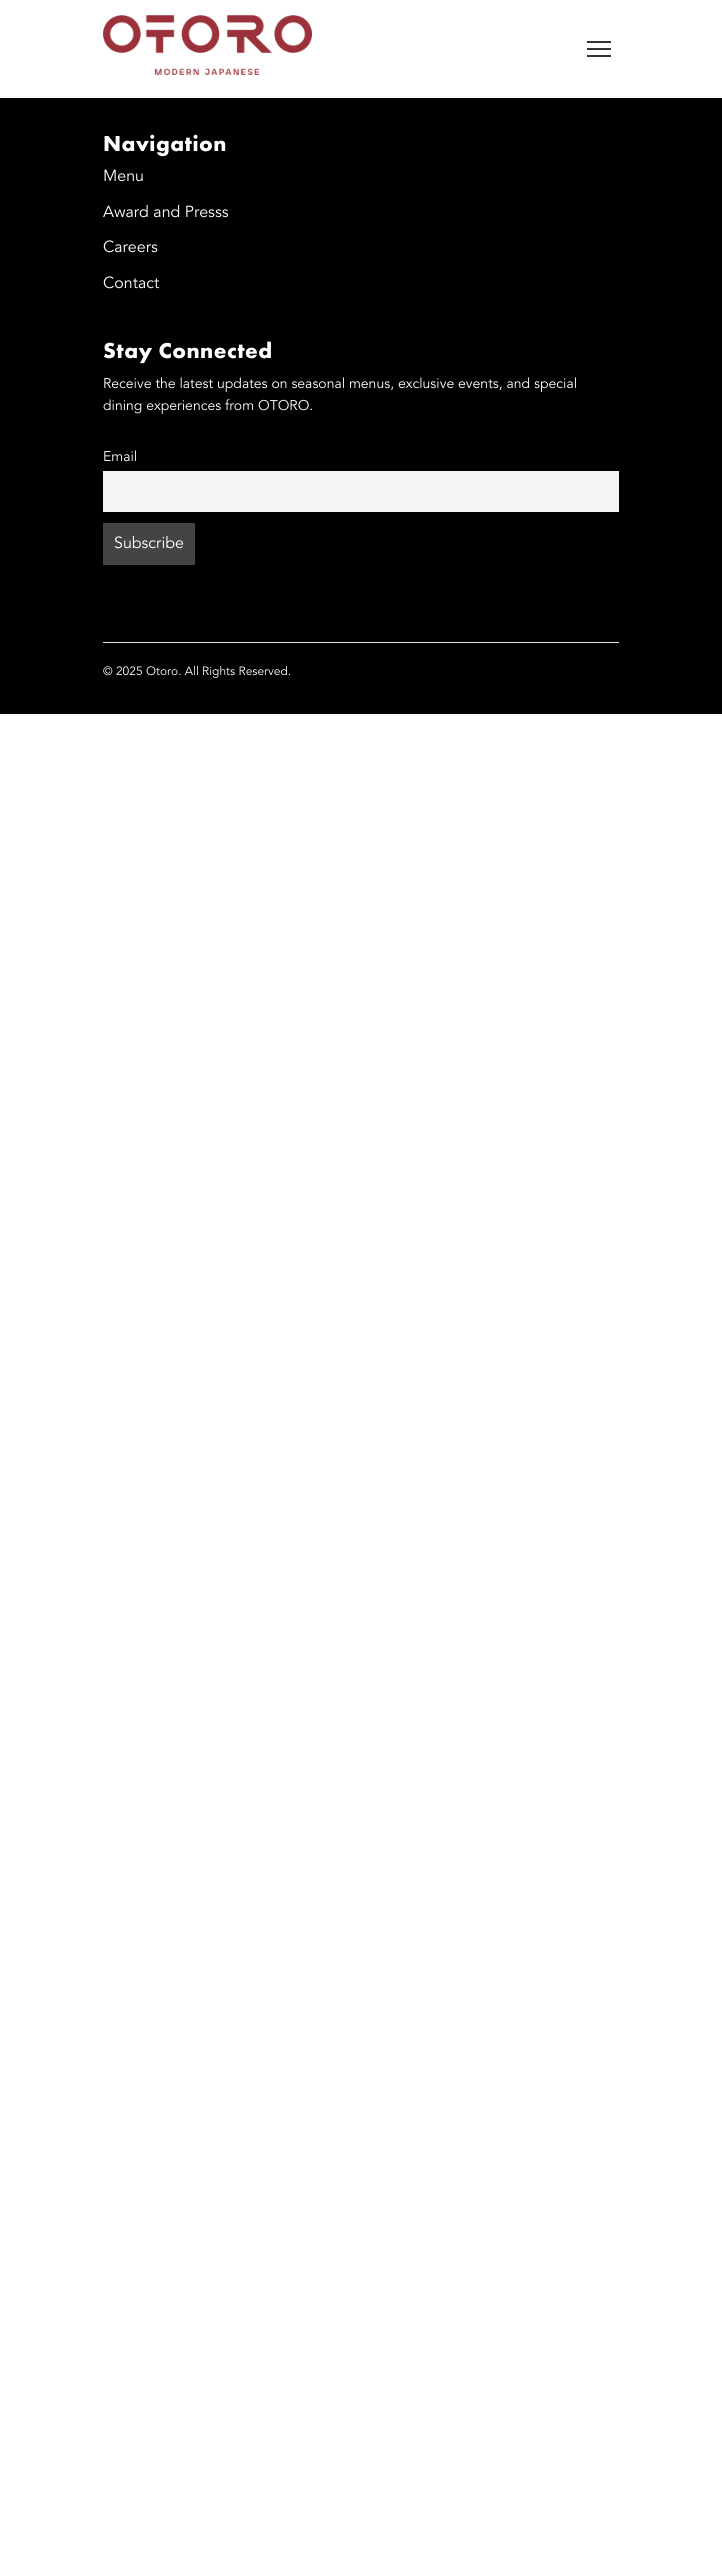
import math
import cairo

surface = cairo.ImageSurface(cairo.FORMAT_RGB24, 722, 2552)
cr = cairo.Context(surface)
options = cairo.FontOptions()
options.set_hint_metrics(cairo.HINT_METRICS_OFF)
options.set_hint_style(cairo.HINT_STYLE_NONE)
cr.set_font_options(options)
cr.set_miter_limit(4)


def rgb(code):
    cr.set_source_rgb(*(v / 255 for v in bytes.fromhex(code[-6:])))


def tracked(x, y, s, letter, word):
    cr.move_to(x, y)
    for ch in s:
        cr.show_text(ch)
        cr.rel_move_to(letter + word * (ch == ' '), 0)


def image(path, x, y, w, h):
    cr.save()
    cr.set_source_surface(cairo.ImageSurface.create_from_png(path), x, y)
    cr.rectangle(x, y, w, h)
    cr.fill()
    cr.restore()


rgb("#ffffff")
cr.paint()
image("img/1.png", 103, 15, 209, 60)
for x, y, w, h, color in [
    (587, 41, 24, 2, "#333333"),
    (587, 48, 24, 2, "#333333"),
    (587, 55, 24, 2, "#333333"),
    (0, 98, 722, 616, "#000000"),
    (103, 471, 516, 41, "#f4f4f4"),
    (103, 523, 92, 42, "#444444"),
    (103, 642, 516, 1, "#e5e0da"),
]:
    rgb(color)
    cr.rectangle(x, y, w, h)
    cr.fill()
cr.select_font_face("Futura PT", cairo.FONT_SLANT_NORMAL, cairo.FONT_WEIGHT_BOLD)
cr.set_font_size(22.5)
rgb("#ffffff")
tracked(103, 151, "Navigation", 0.5, 0)
cr.select_font_face("Avenir")
cr.set_font_size(16)
for x, y, s in [
    (103, 181, "Menu"),
    (103, 217, "Award and Presss"),
    (103, 252, "Careers"),
    (103, 288, "Contact"),
]:
    cr.move_to(x, y)
    cr.show_text(s)
cr.select_font_face("Futura PT", cairo.FONT_SLANT_NORMAL, cairo.FONT_WEIGHT_BOLD)
cr.set_font_size(22.5)
tracked(103, 358, "Stay Connected", 0.5, 0)
cr.select_font_face("Avenir")
cr.set_font_size(14)
for x, y, s in [
    (103, 388, "Receive the latest updates on seasonal menus, exclusive events, and special"),
    (103, 410, "dining experiences from OTORO."),
    (103, 461, "Email"),
]:
    cr.move_to(x, y)
    cr.show_text(s)
cr.set_font_size(16)
cr.move_to(114, 548)
cr.show_text("Subscribe")
cr.set_font_size(12)
cr.move_to(103, 675)
cr.show_text("© 2025 Otoro. All Rights Reserved.")
surface.write_to_png("page.png")
